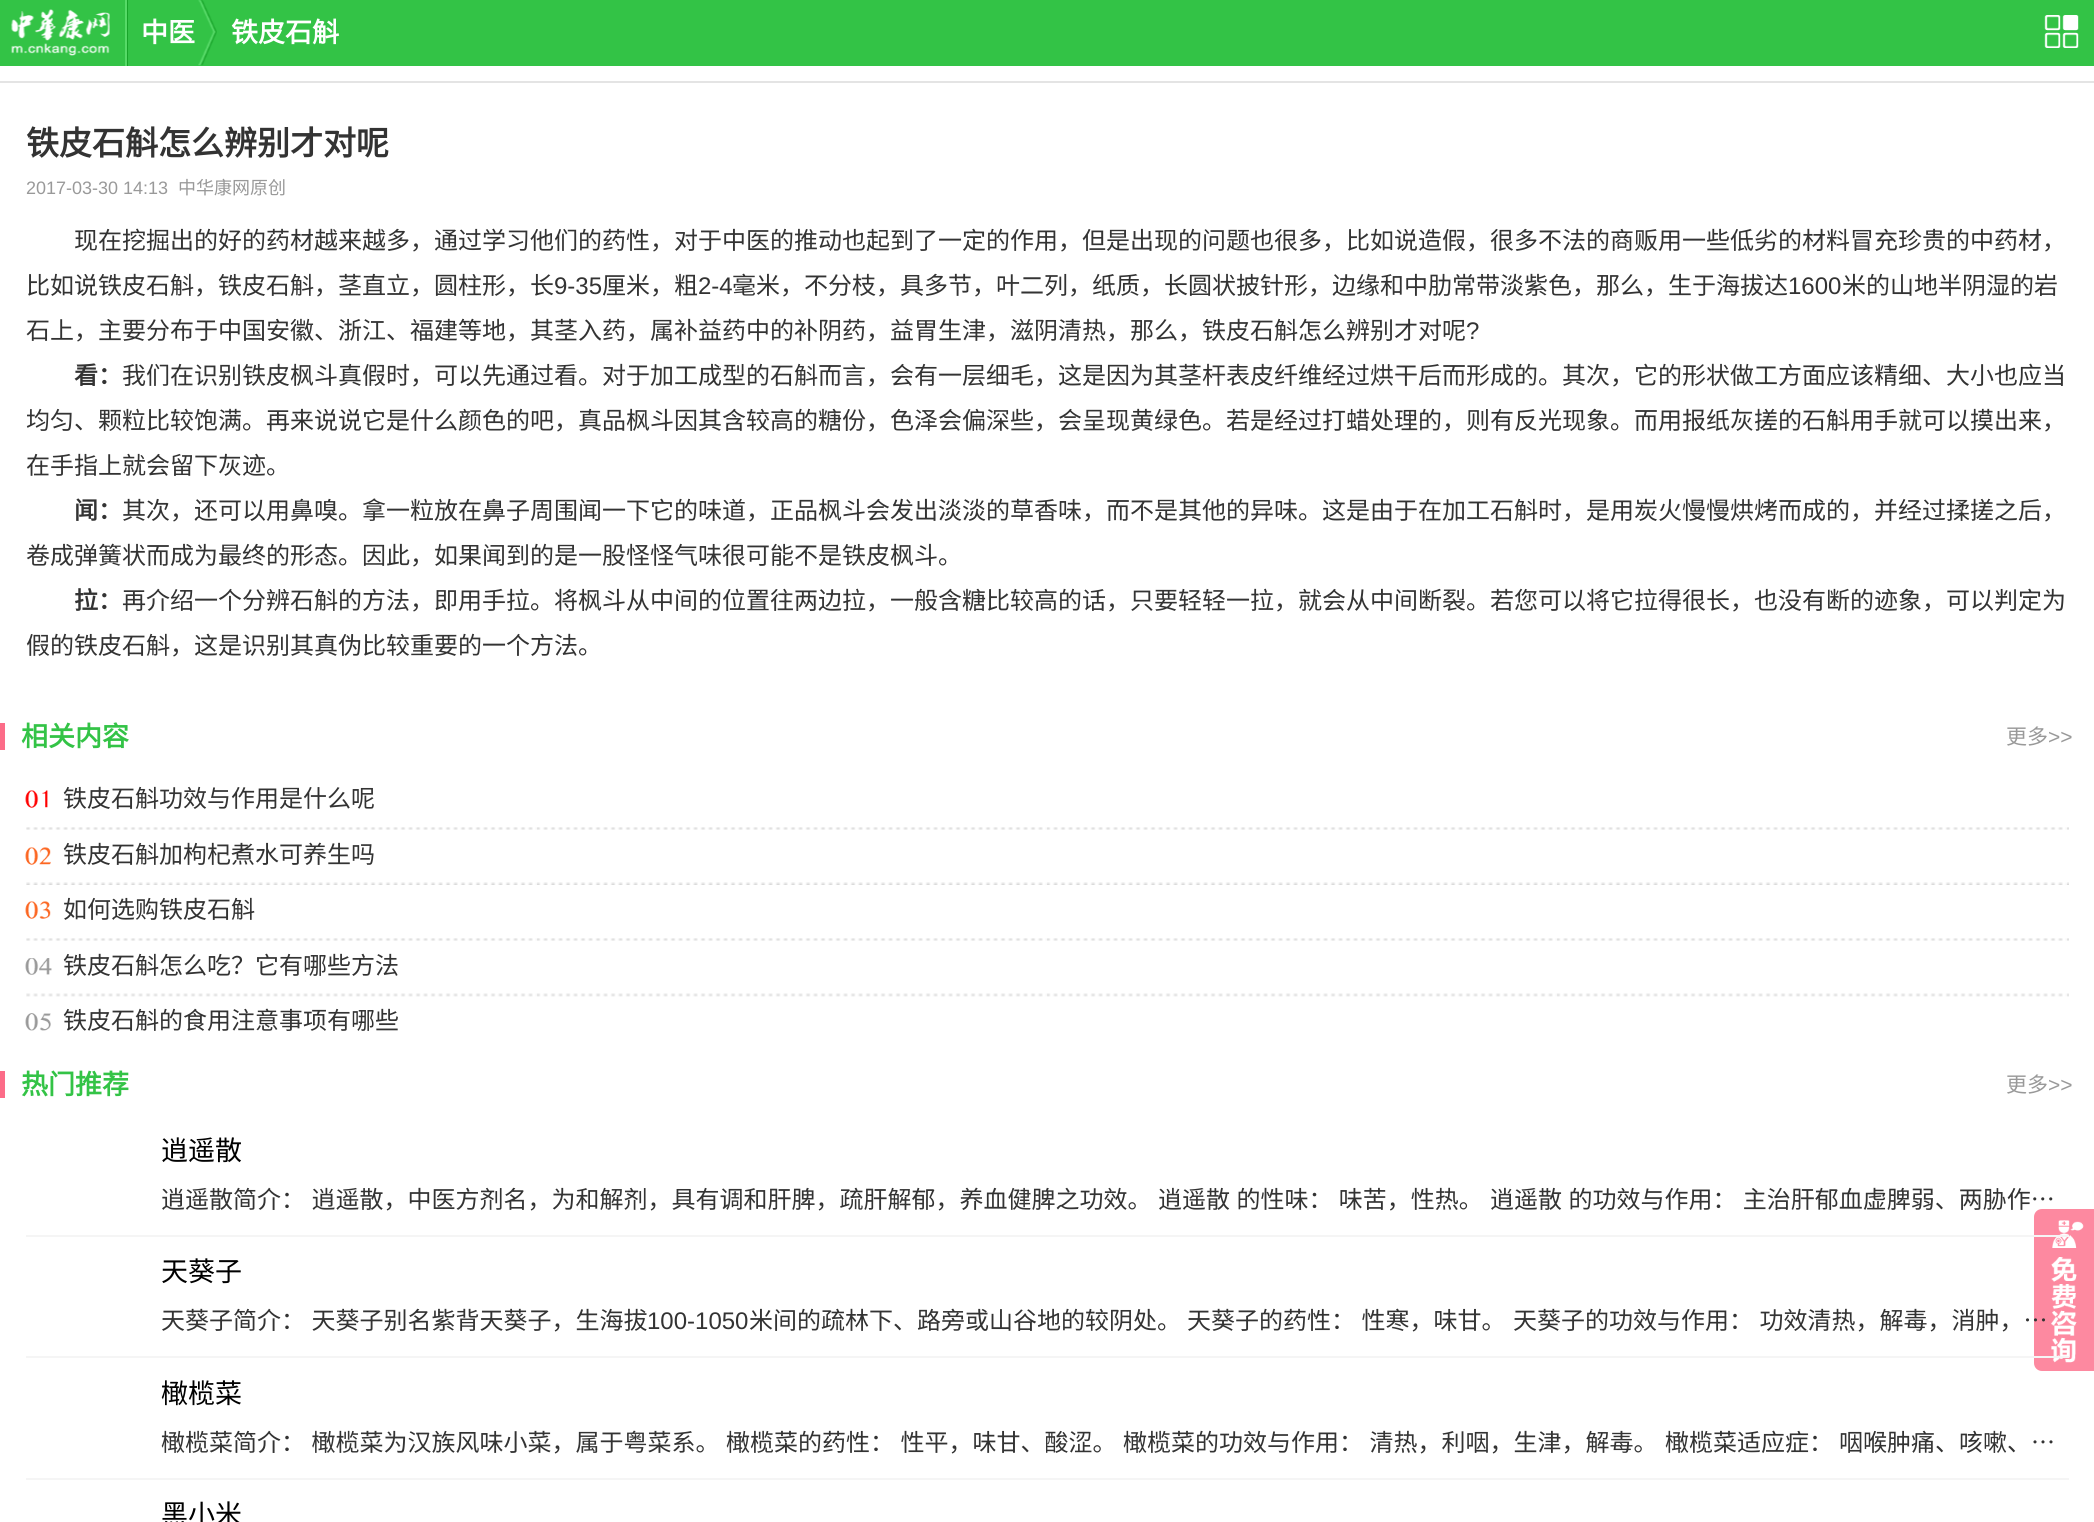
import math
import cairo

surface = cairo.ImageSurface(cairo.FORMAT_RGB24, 2094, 1522)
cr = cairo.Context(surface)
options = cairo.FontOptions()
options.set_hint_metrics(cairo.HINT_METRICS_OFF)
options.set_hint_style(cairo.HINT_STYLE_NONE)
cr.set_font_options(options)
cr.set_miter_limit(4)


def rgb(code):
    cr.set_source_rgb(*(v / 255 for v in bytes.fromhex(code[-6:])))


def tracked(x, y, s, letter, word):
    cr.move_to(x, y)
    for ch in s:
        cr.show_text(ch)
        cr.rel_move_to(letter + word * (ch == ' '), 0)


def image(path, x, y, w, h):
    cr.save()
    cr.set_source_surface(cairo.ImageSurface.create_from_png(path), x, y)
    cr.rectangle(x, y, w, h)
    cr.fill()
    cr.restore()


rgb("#ffffff")
cr.paint()
rgb("#33c346")
cr.rectangle(0, 0, 2094, 66)
cr.fill()
image("img/1.png", 11, 9, 99, 47)
rgb("#18a42a")
cr.rectangle(127, 0, 1, 66)
cr.fill()
rgb("#56da67")
cr.rectangle(125, 0, 2, 66)
cr.fill()
image("img/2.png", 198, 0, 19, 66)
image("img/3.png", 2044, 15, 35, 33)
rgb("#e4e4e4")
cr.rectangle(0, 81, 2094, 2)
cr.fill()
rgb("#fc6c88")
cr.rectangle(0, 723, 5, 27)
cr.fill()
image("img/4.png", 25, 790, 27, 241)
image("img/5.png", 26, 827, 2043, 3)
image("img/6.png", 26, 882, 2043, 3)
image("img/5.png", 26, 938, 2043, 3)
image("img/7.png", 26, 993, 2043, 4)
cr.rectangle(0, 1071, 5, 27)
cr.fill()
rgb("#fd89a0")
cr.new_path()
cr.move_to(2042, 1209)
cr.line_to(2094, 1209)
cr.line_to(2094, 1371)
cr.line_to(2042, 1371)
cr.curve_to(2037.5, 1371, 2034, 1367.5, 2034, 1363)
cr.line_to(2034, 1217)
cr.curve_to(2034, 1212.5, 2037.5, 1209, 2042, 1209)
cr.close_path()
cr.fill()
image("img/8.png", 2051, 1220, 33, 143)
for x, y, w, h, color in [
    (26, 1235, 2043, 2, "#f5f5f5"),
    (26, 1356, 2043, 2, "#f5f5f5"),
    (26, 1478, 2043, 2, "#f5f5f5"),
]:
    rgb(color)
    cr.rectangle(x, y, w, h)
    cr.fill()
cr.select_font_face("Noto Sans CJK SC", cairo.FONT_SLANT_NORMAL, cairo.FONT_WEIGHT_BOLD)
cr.set_font_size(27)
rgb("#ffffff")
cr.move_to(141, 42)
cr.show_text("中医")
cr.move_to(231, 42)
cr.show_text("铁皮石斛")
cr.set_font_size(33)
rgb("#333333")
cr.move_to(26, 155)
cr.show_text("铁皮石斛怎么辨别才对呢")
cr.select_font_face("Liberation Sans")
cr.set_font_size(18)
rgb("#999999")
cr.move_to(26, 194)
cr.show_text("2017-03-30 14:13")
cr.select_font_face("Noto Sans CJK SC")
cr.move_to(178, 194)
cr.show_text("中华康网原创")
cr.set_font_size(24)
rgb("#333333")
cr.move_to(74, 249)
cr.show_text("现在挖掘出的好的药材越来越多，通过学习他们的药性，对于中医的推动也起到了一定的作用，但是出现的问题也很多，比如说造假，很多不法的商贩用一些低劣的材料冒充珍贵的中药材，")
cr.move_to(26, 294)
cr.show_text("比如说铁皮石斛，铁皮石斛，茎直立，圆柱形，长")
cr.select_font_face("Liberation Sans")
cr.move_to(554, 294)
cr.show_text("9-35")
cr.select_font_face("Noto Sans CJK SC")
cr.move_to(602, 294)
cr.show_text("厘米，粗")
cr.select_font_face("Liberation Sans")
cr.move_to(698, 294)
cr.show_text("2-4")
cr.select_font_face("Noto Sans CJK SC")
cr.move_to(732, 294)
cr.show_text("毫米，不分枝，具多节，叶二列，纸质，长圆状披针形，边缘和中肋常带淡紫色，那么，生于海拔达")
cr.select_font_face("Liberation Sans")
cr.move_to(1788, 294)
cr.show_text("1600")
cr.select_font_face("Noto Sans CJK SC")
cr.move_to(1842, 294)
cr.show_text("米的山地半阴湿的岩")
cr.move_to(26, 339)
cr.show_text("石上，主要分布于中国安徽、浙江、福建等地，其茎入药，属补益药中的补阴药，益胃生津，滋阴清热，那么，铁皮石斛怎么辨别才对呢")
cr.select_font_face("Liberation Sans")
cr.move_to(1466, 339)
cr.show_text("?")
cr.select_font_face("Noto Sans CJK SC", cairo.FONT_SLANT_NORMAL, cairo.FONT_WEIGHT_BOLD)
cr.move_to(74, 384)
cr.show_text("看：")
cr.select_font_face("Noto Sans CJK SC")
for x, y, s in [
    (122, 384, "我们在识别铁皮枫斗真假时，可以先通过看。对于加工成型的石斛而言，会有一层细毛，这是因为其茎杆表皮纤维经过烘干后而形成的。其次，它的形状做工方面应该精细、大小也应当"),
    (26, 429, "均匀、颗粒比较饱满。再来说说它是什么颜色的吧，真品枫斗因其含较高的糖份，色泽会偏深些，会呈现黄绿色。若是经过打蜡处理的，则有反光现象。而用报纸灰搓的石斛用手就可以摸出来，"),
    (26, 474, "在手指上就会留下灰迹。"),
]:
    cr.move_to(x, y)
    cr.show_text(s)
cr.select_font_face("Noto Sans CJK SC", cairo.FONT_SLANT_NORMAL, cairo.FONT_WEIGHT_BOLD)
cr.move_to(74, 519)
cr.show_text("闻：")
cr.select_font_face("Noto Sans CJK SC")
cr.move_to(122, 519)
cr.show_text("其次，还可以用鼻嗅。拿一粒放在鼻子周围闻一下它的味道，正品枫斗会发出淡淡的草香味，而不是其他的异味。这是由于在加工石斛时，是用炭火慢慢烘烤而成的，并经过揉搓之后，")
cr.move_to(26, 564)
cr.show_text("卷成弹簧状而成为最终的形态。因此，如果闻到的是一股怪怪气味很可能不是铁皮枫斗。")
cr.select_font_face("Noto Sans CJK SC", cairo.FONT_SLANT_NORMAL, cairo.FONT_WEIGHT_BOLD)
cr.move_to(74, 609)
cr.show_text("拉：")
cr.select_font_face("Noto Sans CJK SC")
cr.move_to(122, 609)
cr.show_text("再介绍一个分辨石斛的方法，即用手拉。将枫斗从中间的位置往两边拉，一般含糖比较高的话，只要轻轻一拉，就会从中间断裂。若您可以将它拉得很长，也没有断的迹象，可以判定为")
cr.move_to(26, 654)
cr.show_text("假的铁皮石斛，这是识别其真伪比较重要的一个方法。")
cr.select_font_face("Noto Sans CJK SC", cairo.FONT_SLANT_NORMAL, cairo.FONT_WEIGHT_BOLD)
cr.set_font_size(27)
rgb("#33c346")
cr.move_to(21, 746)
cr.show_text("相关内容")
cr.select_font_face("Noto Sans CJK SC")
cr.set_font_size(21)
rgb("#999999")
cr.move_to(2006, 744)
cr.show_text("更多")
cr.select_font_face("Liberation Sans")
cr.move_to(2048, 744)
cr.show_text(">>")
cr.select_font_face("Noto Sans CJK SC")
cr.set_font_size(24)
rgb("#333333")
for x, y, s in [
    (63, 807, "铁皮石斛功效与作用是什么呢"),
    (63, 863, "铁皮石斛加枸杞煮水可养生吗"),
    (63, 918, "如何选购铁皮石斛"),
    (63, 974, "铁皮石斛怎么吃？它有哪些方法"),
    (63, 1029, "铁皮石斛的食用注意事项有哪些"),
]:
    cr.move_to(x, y)
    cr.show_text(s)
cr.select_font_face("Noto Sans CJK SC", cairo.FONT_SLANT_NORMAL, cairo.FONT_WEIGHT_BOLD)
cr.set_font_size(27)
rgb("#33c346")
cr.move_to(21, 1094)
cr.show_text("热门推荐")
cr.select_font_face("Noto Sans CJK SC")
cr.set_font_size(21)
rgb("#999999")
cr.move_to(2006, 1092)
cr.show_text("更多")
cr.select_font_face("Liberation Sans")
cr.move_to(2048, 1092)
cr.show_text(">>")
cr.select_font_face("Noto Sans CJK SC")
cr.set_font_size(27)
rgb("#000000")
cr.move_to(161, 1160)
cr.show_text("逍遥散")
cr.set_font_size(24)
rgb("#333333")
for x, y, s in [
    (161, 1208, "逍遥散简介： 逍遥散，中医方剂名，为和解剂，具有调和肝脾，疏肝解郁，养血健脾之功效。"),
    (1158, 1208, "逍遥散 的性味： 味苦，性热。"),
    (1490, 1208, "逍遥散 的功效与作用： 主治肝郁血虚脾弱、两胁作…"),
]:
    tracked(x, y, s, 0, 1)
cr.set_font_size(27)
rgb("#000000")
cr.move_to(161, 1281)
cr.show_text("天葵子")
cr.set_font_size(24)
rgb("#333333")
tracked(161, 1329, "天葵子简介： 天葵子别名紫背天葵子，生海拔", 0, 1)
cr.select_font_face("Liberation Sans")
cr.move_to(647, 1329)
cr.show_text("100-1050")
cr.select_font_face("Noto Sans CJK SC")
cr.move_to(749, 1329)
cr.show_text("米间的疏林下、路旁或山谷地的较阴处。")
tracked(1187, 1329, "天葵子的药性： 性寒，味甘。", 0, 1)
tracked(1513, 1329, "天葵子的功效与作用： 功效清热，解毒，消肿，…", 0, 1)
cr.set_font_size(27)
rgb("#000000")
cr.move_to(161, 1403)
cr.show_text("橄榄菜")
cr.set_font_size(24)
rgb("#333333")
for x, y, s in [
    (161, 1451, "橄榄菜简介： 橄榄菜为汉族风味小菜，属于粤菜系。"),
    (726, 1451, "橄榄菜的药性： 性平，味甘、酸涩。"),
    (1123, 1451, "橄榄菜的功效与作用： 清热，利咽，生津，解毒。"),
]:
    tracked(x, y, s, 0, 1)
cr.move_to(1665, 1451)
cr.show_text("橄榄菜适应症：")
cr.move_to(1839, 1451)
cr.show_text("咽喉肿痛、咳嗽、…")
cr.set_font_size(27)
rgb("#000000")
cr.move_to(161, 1524)
cr.show_text("黑小米")
surface.write_to_png("page.png")
